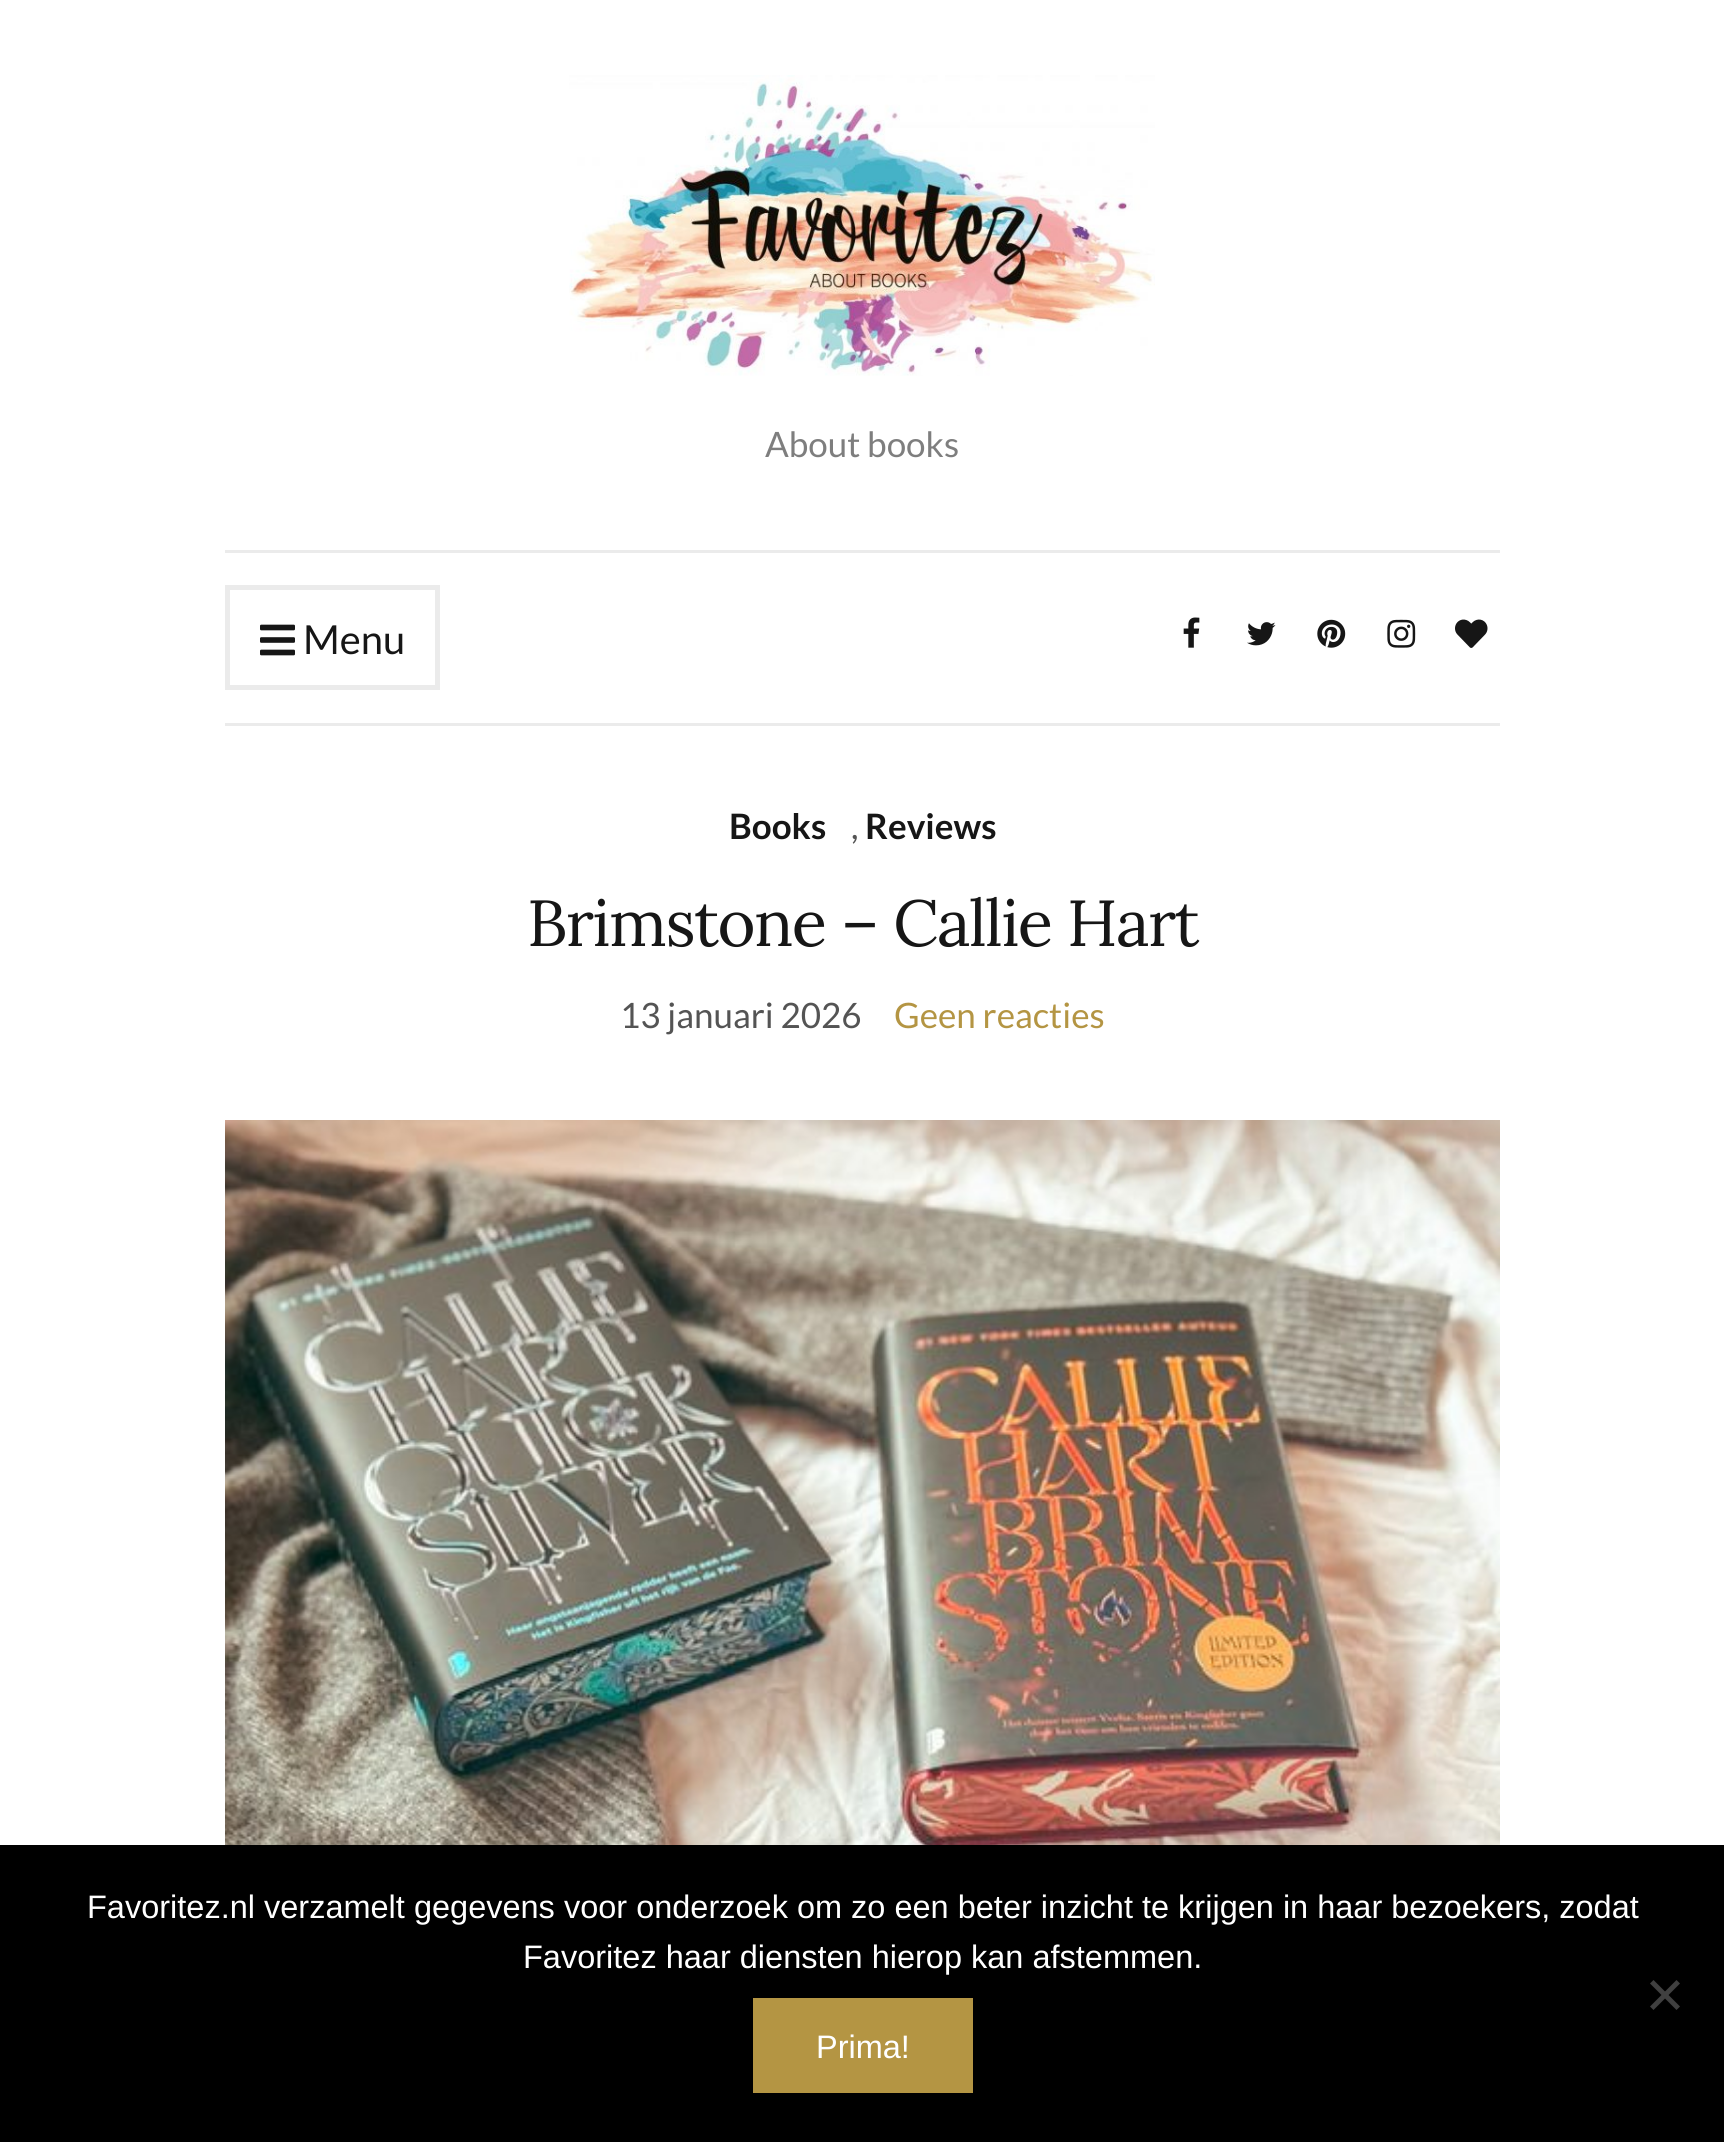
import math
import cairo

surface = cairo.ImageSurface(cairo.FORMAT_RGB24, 1724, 2142)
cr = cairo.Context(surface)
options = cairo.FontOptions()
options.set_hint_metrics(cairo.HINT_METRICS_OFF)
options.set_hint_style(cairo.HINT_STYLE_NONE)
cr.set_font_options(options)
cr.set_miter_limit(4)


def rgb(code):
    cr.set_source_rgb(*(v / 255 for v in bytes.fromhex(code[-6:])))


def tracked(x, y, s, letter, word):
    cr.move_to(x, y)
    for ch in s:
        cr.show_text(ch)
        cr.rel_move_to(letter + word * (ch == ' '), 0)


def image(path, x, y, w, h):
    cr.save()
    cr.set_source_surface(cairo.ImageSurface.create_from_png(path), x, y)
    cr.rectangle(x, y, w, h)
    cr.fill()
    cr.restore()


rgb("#ffffff")
cr.paint()
image("img/1.png", 569, 75, 586, 301)
rgb("#ebebeb")
cr.rectangle(225, 550, 1275, 3)
cr.fill()
cr.rectangle(225, 723, 1275, 3)
cr.fill()
cr.rectangle(227.5, 587.5, 210, 100)
cr.set_line_width(5)
cr.stroke()
image("img/2.png", 260, 624, 35, 32)
image("img/3.png", 1183, 617, 17, 31)
image("img/4.png", 1247, 622, 29, 24)
image("img/5.png", 1317, 619, 29, 29)
image("img/6.png", 1387, 619, 29, 29)
image("img/7.png", 1455, 619, 33, 29)
image("img/8.png", 225, 1120, 1275, 725)
rgb("#000000")
cr.rectangle(0, 1845, 1724, 297)
cr.fill()
rgb("#404040")
cr.new_path()
cr.move_to(1676.5, 1980)
cr.line_to(1680, 1983.5)
cr.line_to(1653.5, 2010)
cr.line_to(1650, 2006.5)
cr.close_path()
cr.fill()
cr.new_path()
cr.move_to(1650, 1983.5)
cr.line_to(1653.5, 1980)
cr.line_to(1680, 2006.5)
cr.line_to(1676.5, 2010)
cr.close_path()
cr.fill()
rgb("#b49543")
cr.rectangle(753, 1998, 220, 95)
cr.fill()
cr.select_font_face("Lato")
cr.set_font_size(35)
rgb("#7e7e7e")
cr.move_to(765, 457)
cr.show_text("About books")
cr.set_font_size(40)
rgb("#161616")
cr.move_to(303, 654)
cr.show_text("Menu")
cr.select_font_face("Lato", cairo.FONT_SLANT_NORMAL, cairo.FONT_WEIGHT_BOLD)
cr.set_font_size(35)
cr.move_to(729, 839)
cr.show_text("Books")
cr.select_font_face("Lato")
rgb("#545454")
cr.move_to(851, 839)
cr.show_text(",")
cr.select_font_face("Lato", cairo.FONT_SLANT_NORMAL, cairo.FONT_WEIGHT_BOLD)
rgb("#161616")
cr.move_to(865, 839)
cr.show_text("Reviews")
cr.select_font_face("Lora")
cr.set_font_size(65)
tracked(527, 946, "Brimstone – Callie Hart", -1.6, 0)
cr.select_font_face("Lato")
cr.set_font_size(35)
rgb("#545454")
cr.move_to(620, 1028)
cr.show_text("13 januari 2026")
rgb("#b49543")
cr.move_to(894, 1028)
cr.show_text("Geen reacties")
cr.select_font_face("Liberation Sans")
cr.set_font_size(32.5)
rgb("#ffffff")
for x, y, s in [
    (87, 1918, "Favoritez.nl verzamelt gegevens voor onderzoek om zo een beter inzicht te krijgen in haar bezoekers, zodat"),
    (523, 1968, "Favoritez haar diensten hierop kan afstemmen."),
    (816, 2058, "Prima!"),
]:
    cr.move_to(x, y)
    cr.show_text(s)
surface.write_to_png("page.png")
